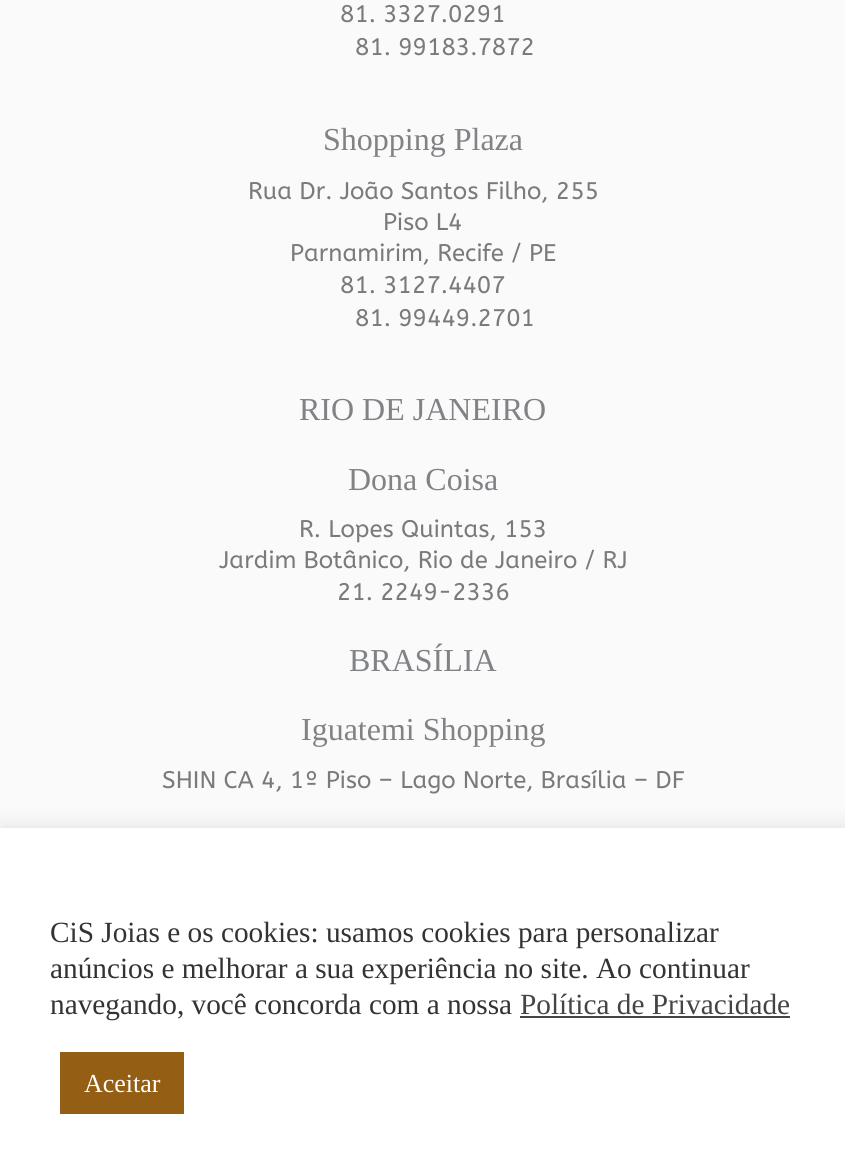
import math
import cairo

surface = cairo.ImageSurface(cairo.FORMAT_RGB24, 845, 1174)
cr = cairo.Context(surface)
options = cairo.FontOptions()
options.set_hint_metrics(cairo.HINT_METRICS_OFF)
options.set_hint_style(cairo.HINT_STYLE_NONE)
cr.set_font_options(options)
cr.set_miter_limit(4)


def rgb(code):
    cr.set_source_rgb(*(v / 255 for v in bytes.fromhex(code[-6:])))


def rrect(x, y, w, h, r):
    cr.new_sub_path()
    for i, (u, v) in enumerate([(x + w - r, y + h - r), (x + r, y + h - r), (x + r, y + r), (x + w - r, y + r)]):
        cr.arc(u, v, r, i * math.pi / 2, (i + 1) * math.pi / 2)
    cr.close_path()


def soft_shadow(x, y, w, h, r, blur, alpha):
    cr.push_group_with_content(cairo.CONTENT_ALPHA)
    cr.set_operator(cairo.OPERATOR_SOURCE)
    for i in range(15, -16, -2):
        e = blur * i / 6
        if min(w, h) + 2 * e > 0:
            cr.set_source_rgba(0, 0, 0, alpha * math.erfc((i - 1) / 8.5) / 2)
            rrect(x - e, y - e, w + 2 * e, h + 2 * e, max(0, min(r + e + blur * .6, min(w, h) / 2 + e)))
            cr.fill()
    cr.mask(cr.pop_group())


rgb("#fafafa")
cr.paint()
rgb("#acabab")
soft_shadow(0, 826, 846, 346, 0, 10, 0.3)
for x, y, w, h, color in [
    (0, 828, 845, 346, "#ffffff"),
    (520, 1016, 270, 2, "#444444"),
    (60, 1052, 124, 62, "#945f15"),
]:
    rgb(color)
    cr.rectangle(x, y, w, h)
    cr.fill()
cr.select_font_face("ABeeZee")
cr.set_font_size(24)
rgb("#7a7a7a")
cr.move_to(340, 22)
cr.show_text("81. 3327.0291")
cr.move_to(355, 55)
cr.show_text("81. 99183.7872")
cr.select_font_face("Liberation Serif")
cr.set_font_size(32)
rgb("#808285")
cr.move_to(323, 150)
cr.show_text("Shopping Plaza")
cr.select_font_face("ABeeZee")
cr.set_font_size(24)
rgb("#7a7a7a")
for x, y, s in [
    (248, 199, "Rua Dr. João Santos Filho, 255"),
    (383, 230, "Piso L4"),
    (290, 261, "Parnamirim, Recife / PE"),
    (340, 293, "81. 3127.4407"),
    (355, 326, "81. 99449.2701"),
]:
    cr.move_to(x, y)
    cr.show_text(s)
cr.select_font_face("Liberation Serif")
cr.set_font_size(32)
rgb("#808285")
cr.move_to(299, 420)
cr.show_text("RIO DE JANEIRO")
cr.move_to(348, 490)
cr.show_text("Dona Coisa")
cr.select_font_face("ABeeZee")
cr.set_font_size(24)
rgb("#7a7a7a")
for x, y, s in [
    (299, 537, "R. Lopes Quintas, 153"),
    (219, 568, "Jardim Botânico, Rio de Janeiro / RJ"),
    (337, 600, "21. 2249-2336"),
]:
    cr.move_to(x, y)
    cr.show_text(s)
cr.select_font_face("Liberation Serif")
cr.set_font_size(32)
rgb("#808285")
cr.move_to(349, 671)
cr.show_text("BRASÍLIA")
cr.move_to(301, 740)
cr.show_text("Iguatemi Shopping")
cr.select_font_face("ABeeZee")
cr.set_font_size(24)
rgb("#7a7a7a")
cr.move_to(162, 788)
cr.show_text("SHIN CA 4, 1º Piso – Lago Norte, Brasília – DF")
cr.select_font_face("Liberation Serif")
cr.set_font_size(29.3)
rgb("#333333")
for x, y, s in [
    (50, 942, "CiS Joias e os cookies: usamos cookies para personalizar"),
    (50, 978, "anúncios e melhorar a sua experiência no site. Ao continuar"),
    (50, 1014, "navegando, você concorda com a nossa"),
]:
    cr.move_to(x, y)
    cr.show_text(s)
rgb("#444444")
cr.move_to(520, 1014)
cr.show_text("Política de Privacidade")
cr.set_font_size(26)
rgb("#ffffff")
cr.move_to(84, 1092)
cr.show_text("Aceitar")
surface.write_to_png("page.png")
